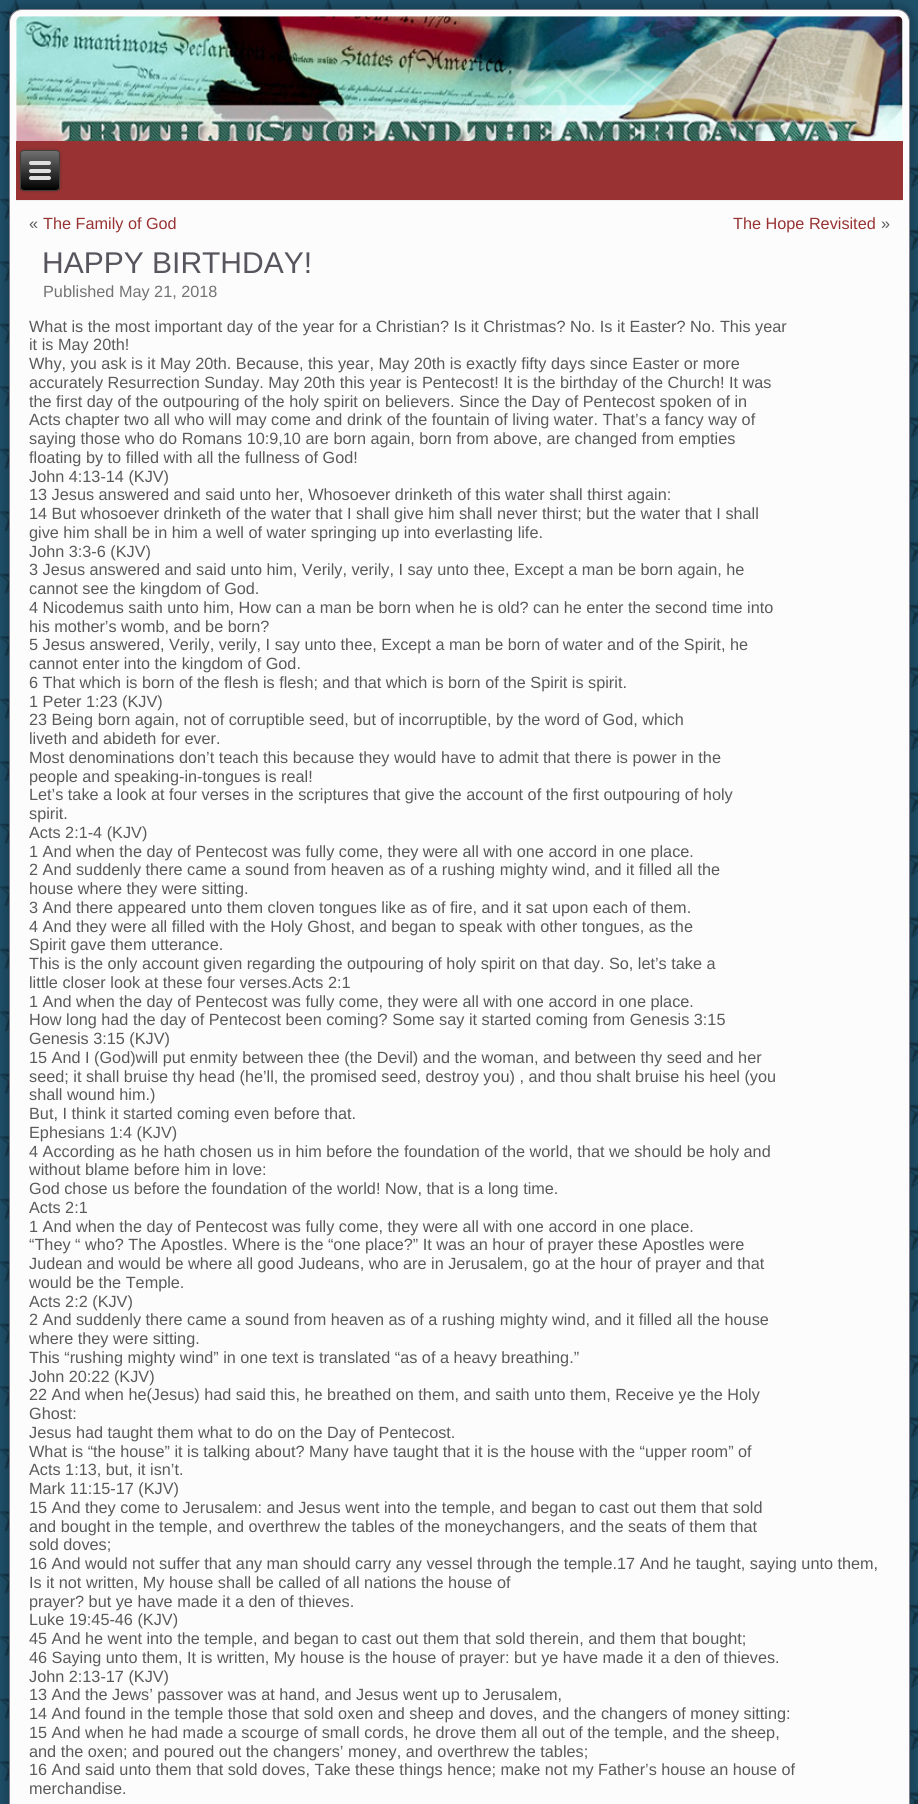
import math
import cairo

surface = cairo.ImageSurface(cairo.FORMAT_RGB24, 918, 1804)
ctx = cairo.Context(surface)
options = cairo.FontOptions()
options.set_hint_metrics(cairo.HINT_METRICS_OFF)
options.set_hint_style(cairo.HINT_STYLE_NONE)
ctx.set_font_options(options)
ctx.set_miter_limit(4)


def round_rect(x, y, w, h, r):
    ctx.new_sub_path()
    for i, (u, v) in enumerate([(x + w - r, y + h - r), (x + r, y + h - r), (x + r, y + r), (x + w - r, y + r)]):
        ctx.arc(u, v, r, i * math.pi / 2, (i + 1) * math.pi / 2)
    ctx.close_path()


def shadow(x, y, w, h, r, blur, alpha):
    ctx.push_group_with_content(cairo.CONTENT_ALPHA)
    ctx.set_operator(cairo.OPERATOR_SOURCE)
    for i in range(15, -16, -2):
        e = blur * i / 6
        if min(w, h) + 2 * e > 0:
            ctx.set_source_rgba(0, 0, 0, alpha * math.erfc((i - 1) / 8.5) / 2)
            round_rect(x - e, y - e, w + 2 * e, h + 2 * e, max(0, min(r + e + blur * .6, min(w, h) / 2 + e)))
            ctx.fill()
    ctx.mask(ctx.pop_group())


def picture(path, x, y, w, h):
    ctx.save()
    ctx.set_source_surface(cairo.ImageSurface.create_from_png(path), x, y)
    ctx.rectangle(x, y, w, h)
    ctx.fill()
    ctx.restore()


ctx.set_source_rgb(1, 1, 1)
ctx.paint()
picture("img1.png", 0, 0, 918, 1804)
ctx.set_source_rgb(0, 0, 0)
shadow(4, 4, 911, 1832, 18, 4.5, 0.2)
ctx.set_source_rgb(0.988, 0.988, 0.988)
round_rect(9.5, 9.5, 900, 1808, 12.5)
ctx.fill_preserve()
ctx.set_source_rgb(0.51, 0.494, 0.541)
ctx.set_line_width(1)
ctx.stroke()
picture("img2.png", 16, 16, 887, 125)
ctx.set_source_rgb(0.6, 0.2, 0.2)
ctx.rectangle(16, 141, 887, 59)
ctx.fill()
ctx.set_source_rgb(0.933, 0.937, 0.933)
ctx.rectangle(16, 200, 887, 1)
ctx.fill()
ctx.set_source_rgb(0, 0, 0)
shadow(20, 150, 40, 41, 4, 2, 0.2)
ctx.save()
round_rect(20, 150, 40, 41, 4)
ctx.clip()
gradient = cairo.LinearGradient(40, 151, 40, 190)
gradient.add_color_stop_rgba(0, 0.439, 0.439, 0.439, 1)
gradient.add_color_stop_rgba(1, 0, 0, 0, 1)
ctx.set_source(gradient)
ctx.rectangle(20, 151, 40, 39)
ctx.fill()
ctx.restore()
round_rect(20.5, 150.5, 39, 40, 3.5)
ctx.set_source_rgb(0.251, 0.251, 0.251)
ctx.stroke()
ctx.set_source_rgb(0.878, 0.878, 0.878)
round_rect(29, 161, 22, 4, 2)
ctx.fill()
round_rect(29, 169, 22, 4, 2)
ctx.fill()
round_rect(29, 176, 22, 4, 2)
ctx.fill()
ctx.select_font_face("Liberation Sans")
ctx.set_font_size(16.25)
ctx.set_source_rgb(0.349, 0.357, 0.349)
ctx.move_to(29, 229)
ctx.show_text("«")
ctx.set_source_rgb(0.6, 0.2, 0.2)
ctx.move_to(43, 229)
ctx.show_text("The Family of God")
ctx.move_to(733, 229)
ctx.show_text("The Hope Revisited")
ctx.set_source_rgb(0.349, 0.357, 0.349)
ctx.move_to(881, 229)
ctx.show_text("»")
ctx.set_font_size(30)
ctx.set_source_rgb(0.345, 0.333, 0.369)
ctx.move_to(42, 273)
ctx.show_text("HAPPY BIRTHDAY!")
ctx.set_font_size(16.25)
ctx.set_source_rgb(0.447, 0.455, 0.447)
ctx.move_to(43, 297)
ctx.show_text("Published May 21, 2018")
ctx.set_source_rgb(0.349, 0.357, 0.349)
ctx.move_to(29, 332)
ctx.show_text("What is the most important day of the year for a Christian? Is it Christmas? No. Is it Easter? No. This year")
ctx.move_to(29, 350)
ctx.show_text("it is May 20th!")
ctx.move_to(29, 369)
ctx.show_text("Why, you ask is it May 20th. Because, this year, May 20th is exactly fifty days since Easter or more")
ctx.move_to(29, 388)
ctx.show_text("accurately Resurrection Sunday. May 20th this year is Pentecost! It is the birthday of the Church! It was")
ctx.move_to(29, 407)
ctx.show_text("the first day of the outpouring of the holy spirit on believers. Since the Day of Pentecost spoken of in")
ctx.move_to(29, 425)
ctx.show_text("Acts chapter two all who will may come and drink of the fountain of living water. That’s a fancy way of")
ctx.move_to(29, 444)
ctx.show_text("saying those who do Romans 10:9,10 are born again, born from above, are changed from empties")
ctx.move_to(29, 463)
ctx.show_text("floating by to filled with all the fullness of God!")
ctx.move_to(29, 482)
ctx.show_text("John 4:13-14 (KJV)")
ctx.move_to(29, 500)
ctx.show_text("13 Jesus answered and said unto her, Whosoever drinketh of this water shall thirst again:")
ctx.move_to(29, 519)
ctx.show_text("14 But whosoever drinketh of the water that I shall give him shall never thirst; but the water that I shall")
ctx.move_to(29, 538)
ctx.show_text("give him shall be in him a well of water springing up into everlasting life.")
ctx.move_to(29, 557)
ctx.show_text("John 3:3-6 (KJV)")
ctx.move_to(29, 575)
ctx.show_text("3 Jesus answered and said unto him, Verily, verily, I say unto thee, Except a man be born again, he")
ctx.move_to(29, 594)
ctx.show_text("cannot see the kingdom of God.")
ctx.move_to(29, 613)
ctx.show_text("4 Nicodemus saith unto him, How can a man be born when he is old? can he enter the second time into")
ctx.move_to(29, 632)
ctx.show_text("his mother’s womb, and be born?")
ctx.move_to(29, 650)
ctx.show_text("5 Jesus answered, Verily, verily, I say unto thee, Except a man be born of water and of the Spirit, he")
ctx.move_to(29, 669)
ctx.show_text("cannot enter into the kingdom of God.")
ctx.move_to(29, 688)
ctx.show_text("6 That which is born of the flesh is flesh; and that which is born of the Spirit is spirit.")
ctx.move_to(29, 707)
ctx.show_text("1 Peter 1:23 (KJV)")
ctx.move_to(29, 725)
ctx.show_text("23 Being born again, not of corruptible seed, but of incorruptible, by the word of God, which")
ctx.move_to(29, 744)
ctx.show_text("liveth and abideth for ever.")
ctx.move_to(29, 763)
ctx.show_text("Most denominations don’t teach this because they would have to admit that there is power in the")
ctx.move_to(29, 782)
ctx.show_text("people and speaking-in-tongues is real!")
ctx.move_to(29, 800)
ctx.show_text("Let’s take a look at four verses in the scriptures that give the account of the first outpouring of holy")
ctx.move_to(29, 819)
ctx.show_text("spirit.")
ctx.move_to(29, 838)
ctx.show_text("Acts 2:1-4 (KJV)")
ctx.move_to(29, 857)
ctx.show_text("1 And when the day of Pentecost was fully come, they were all with one accord in one place.")
ctx.move_to(29, 875)
ctx.show_text("2 And suddenly there came a sound from heaven as of a rushing mighty wind, and it filled all the")
ctx.move_to(29, 894)
ctx.show_text("house where they were sitting.")
ctx.move_to(29, 913)
ctx.show_text("3 And there appeared unto them cloven tongues like as of fire, and it sat upon each of them.")
ctx.move_to(29, 932)
ctx.show_text("4 And they were all filled with the Holy Ghost, and began to speak with other tongues, as the")
ctx.move_to(29, 950)
ctx.show_text("Spirit gave them utterance.")
ctx.move_to(29, 969)
ctx.show_text("This is the only account given regarding the outpouring of holy spirit on that day. So, let’s take a")
ctx.move_to(29, 988)
ctx.show_text("little closer look at these four verses.Acts 2:1")
ctx.move_to(29, 1007)
ctx.show_text("1 And when the day of Pentecost was fully come, they were all with one accord in one place.")
ctx.move_to(29, 1025)
ctx.show_text("How long had the day of Pentecost been coming? Some say it started coming from Genesis 3:15")
ctx.move_to(29, 1044)
ctx.show_text("Genesis 3:15 (KJV)")
ctx.move_to(29, 1063)
ctx.show_text("15 And I (God)will put enmity between thee (the Devil) and the woman, and between thy seed and her")
ctx.move_to(29, 1082)
ctx.show_text("seed; it shall bruise thy head (he’ll, the promised seed, destroy you) , and thou shalt bruise his heel (you")
ctx.move_to(29, 1100)
ctx.show_text("shall wound him.)")
ctx.move_to(29, 1119)
ctx.show_text("But, I think it started coming even before that.")
ctx.move_to(29, 1138)
ctx.show_text("Ephesians 1:4 (KJV)")
ctx.move_to(29, 1157)
ctx.show_text("4 According as he hath chosen us in him before the foundation of the world, that we should be holy and")
ctx.move_to(29, 1175)
ctx.show_text("without blame before him in love:")
ctx.move_to(29, 1194)
ctx.show_text("God chose us before the foundation of the world! Now, that is a long time.")
ctx.move_to(29, 1213)
ctx.show_text("Acts 2:1")
ctx.move_to(29, 1232)
ctx.show_text("1 And when the day of Pentecost was fully come, they were all with one accord in one place.")
ctx.move_to(29, 1250)
ctx.show_text("“They “ who? The Apostles. Where is the “one place?” It was an hour of prayer these Apostles were")
ctx.move_to(29, 1269)
ctx.show_text("Judean and would be where all good Judeans, who are in Jerusalem, go at the hour of prayer and that")
ctx.move_to(29, 1288)
ctx.show_text("would be the Temple.")
ctx.move_to(29, 1307)
ctx.show_text("Acts 2:2 (KJV)")
ctx.move_to(29, 1325)
ctx.show_text("2 And suddenly there came a sound from heaven as of a rushing mighty wind, and it filled all the house")
ctx.move_to(29, 1344)
ctx.show_text("where they were sitting.")
ctx.move_to(29, 1363)
ctx.show_text("This “rushing mighty wind” in one text is translated “as of a heavy breathing.”")
ctx.move_to(29, 1382)
ctx.show_text("John 20:22 (KJV)")
ctx.move_to(29, 1400)
ctx.show_text("22 And when he(Jesus) had said this, he breathed on them, and saith unto them, Receive ye the Holy")
ctx.move_to(29, 1419)
ctx.show_text("Ghost:")
ctx.move_to(29, 1438)
ctx.show_text("Jesus had taught them what to do on the Day of Pentecost.")
ctx.move_to(29, 1457)
ctx.show_text("What is “the house” it is talking about? Many have taught that it is the house with the “upper room” of")
ctx.move_to(29, 1475)
ctx.show_text("Acts 1:13, but, it isn’t.")
ctx.move_to(29, 1494)
ctx.show_text("Mark 11:15-17 (KJV)")
ctx.move_to(29, 1513)
ctx.show_text("15 And they come to Jerusalem: and Jesus went into the temple, and began to cast out them that sold")
ctx.move_to(29, 1532)
ctx.show_text("and bought in the temple, and overthrew the tables of the moneychangers, and the seats of them that")
ctx.move_to(29, 1550)
ctx.show_text("sold doves;")
ctx.move_to(29, 1569)
ctx.show_text("16 And would not suffer that any man should carry any vessel through the temple.17 And he taught, saying unto them,")
ctx.move_to(29, 1588)
ctx.show_text("Is it not written, My house shall be called of all nations the house of")
ctx.move_to(29, 1607)
ctx.show_text("prayer? but ye have made it a den of thieves.")
ctx.move_to(29, 1625)
ctx.show_text("Luke 19:45-46 (KJV)")
ctx.move_to(29, 1644)
ctx.show_text("45 And he went into the temple, and began to cast out them that sold therein, and them that bought;")
ctx.move_to(29, 1663)
ctx.show_text("46 Saying unto them, It is written, My house is the house of prayer: but ye have made it a den of thieves.")
ctx.move_to(29, 1682)
ctx.show_text("John 2:13-17 (KJV)")
ctx.move_to(29, 1700)
ctx.show_text("13 And the Jews’ passover was at hand, and Jesus went up to Jerusalem,")
ctx.move_to(29, 1719)
ctx.show_text("14 And found in the temple those that sold oxen and sheep and doves, and the changers of money sitting:")
ctx.move_to(29, 1738)
ctx.show_text("15 And when he had made a scourge of small cords, he drove them all out of the temple, and the sheep,")
ctx.move_to(29, 1757)
ctx.show_text("and the oxen; and poured out the changers’ money, and overthrew the tables;")
ctx.move_to(29, 1775)
ctx.show_text("16 And said unto them that sold doves, Take these things hence; make not my Father’s house an house of")
ctx.move_to(29, 1794)
ctx.show_text("merchandise.")
surface.write_to_png("page.png")
